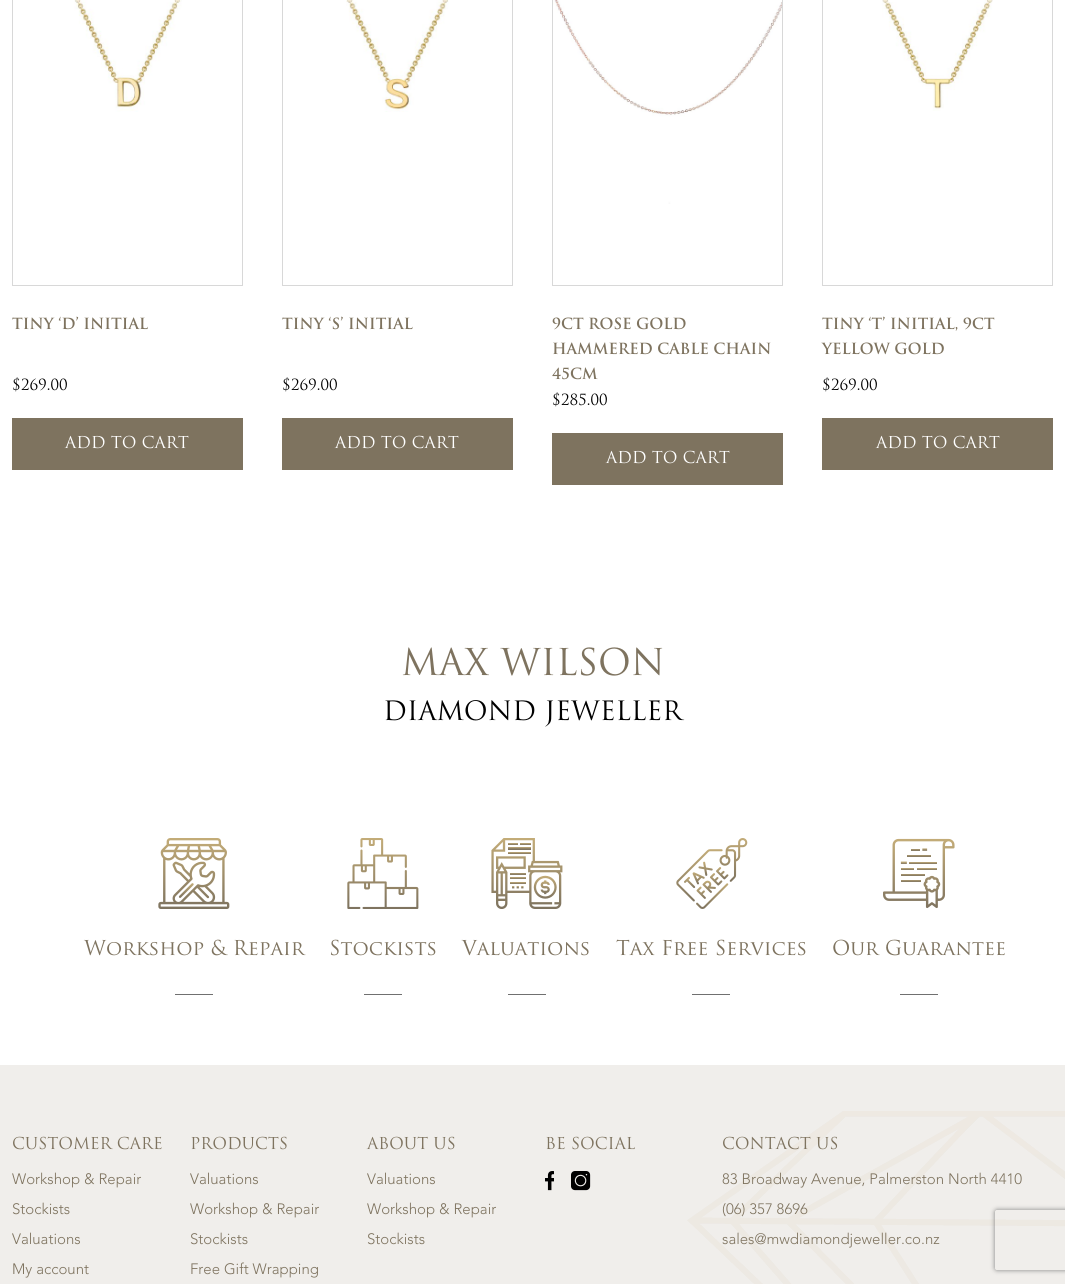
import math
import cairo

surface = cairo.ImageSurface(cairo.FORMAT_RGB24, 1065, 1284)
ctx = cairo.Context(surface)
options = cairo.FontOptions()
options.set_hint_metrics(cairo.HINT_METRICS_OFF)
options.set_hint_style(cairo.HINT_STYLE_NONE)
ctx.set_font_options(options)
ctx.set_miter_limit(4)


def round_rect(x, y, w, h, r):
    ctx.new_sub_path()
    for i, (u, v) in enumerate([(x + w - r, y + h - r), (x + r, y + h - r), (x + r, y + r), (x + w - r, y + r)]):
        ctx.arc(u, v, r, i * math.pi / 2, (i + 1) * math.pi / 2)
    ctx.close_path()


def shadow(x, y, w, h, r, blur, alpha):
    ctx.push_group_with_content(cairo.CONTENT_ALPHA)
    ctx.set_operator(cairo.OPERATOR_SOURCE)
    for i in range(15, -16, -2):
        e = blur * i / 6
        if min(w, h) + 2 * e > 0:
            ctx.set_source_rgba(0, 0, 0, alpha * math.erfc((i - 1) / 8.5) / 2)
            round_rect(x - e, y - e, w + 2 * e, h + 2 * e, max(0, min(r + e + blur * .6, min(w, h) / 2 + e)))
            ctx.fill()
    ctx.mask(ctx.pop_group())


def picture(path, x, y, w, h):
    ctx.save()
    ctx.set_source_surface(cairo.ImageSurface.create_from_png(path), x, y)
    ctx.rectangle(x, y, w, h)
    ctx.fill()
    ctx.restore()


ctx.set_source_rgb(1, 1, 1)
ctx.paint()
ctx.rectangle(12.5, -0.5, 230, 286)
ctx.set_source_rgb(0.847, 0.847, 0.847)
ctx.set_line_width(1)
ctx.stroke()
picture("img1.png", 74, 0, 108, 112)
picture("img2.png", 12, 316, 136, 14)
picture("img3.png", 13, 377, 7, 15)
picture("img4.png", 21, 378, 46, 13)
ctx.set_source_rgb(0.494, 0.451, 0.373)
ctx.rectangle(12, 418, 231, 52)
ctx.fill()
picture("img5.png", 64, 435, 125, 14)
ctx.rectangle(282.5, -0.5, 230, 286)
ctx.set_source_rgb(0.847, 0.847, 0.847)
ctx.stroke()
picture("img6.png", 346, 0, 103, 112)
picture("img7.png", 282, 316, 131, 14)
picture("img3.png", 283, 377, 7, 15)
picture("img4.png", 291, 378, 46, 13)
ctx.set_source_rgb(0.494, 0.451, 0.373)
ctx.rectangle(282, 418, 231, 52)
ctx.fill()
picture("img5.png", 334, 435, 125, 14)
ctx.rectangle(552.5, -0.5, 230, 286)
ctx.set_source_rgb(0.847, 0.847, 0.847)
ctx.stroke()
picture("img8.png", 553, 0, 229, 204)
picture("img9.png", 552, 317, 134, 13)
picture("img10.png", 553, 342, 218, 13)
picture("img11.png", 552, 367, 46, 13)
picture("img3.png", 553, 392, 7, 15)
picture("img12.png", 561, 393, 46, 13)
ctx.set_source_rgb(0.494, 0.451, 0.373)
ctx.rectangle(552, 433, 231, 52)
ctx.fill()
picture("img5.png", 605, 450, 125, 14)
ctx.rectangle(822.5, -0.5, 230, 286)
ctx.set_source_rgb(0.847, 0.847, 0.847)
ctx.stroke()
picture("img13.png", 882, 0, 111, 111)
picture("img14.png", 822, 316, 173, 15)
picture("img15.png", 821, 342, 123, 13)
picture("img3.png", 823, 377, 7, 15)
picture("img4.png", 831, 378, 46, 13)
ctx.set_source_rgb(0.494, 0.451, 0.373)
ctx.rectangle(822, 418, 231, 52)
ctx.fill()
picture("img5.png", 875, 435, 125, 14)
picture("img16.png", 402, 647, 261, 29)
picture("img17.png", 385, 700, 300, 27)
picture("img18.png", 158, 838, 72, 71)
picture("img19.png", 83, 939, 223, 17)
ctx.set_source_rgb(0.439, 0.439, 0.439)
ctx.rectangle(175, 994, 38, 1)
ctx.fill()
picture("img20.png", 347, 838, 72, 71)
picture("img21.png", 331, 939, 105, 17)
ctx.rectangle(364, 994, 38, 1)
ctx.fill()
picture("img22.png", 491, 838, 72, 71)
picture("img23.png", 461, 939, 128, 17)
ctx.rectangle(508, 994, 38, 1)
ctx.fill()
picture("img24.png", 676, 838, 72, 71)
picture("img25.png", 616, 939, 190, 17)
ctx.rectangle(692, 994, 38, 1)
ctx.fill()
picture("img26.png", 883, 838, 72, 71)
picture("img27.png", 833, 939, 172, 17)
ctx.rectangle(900, 994, 38, 1)
ctx.fill()
ctx.set_source_rgb(0.941, 0.933, 0.918)
ctx.rectangle(0, 1065, 1065, 219)
ctx.fill()
picture("img28.png", 687, 1111, 378, 173)
picture("img29.png", 13, 1136, 149, 14)
ctx.select_font_face("Avenir Light")
ctx.set_font_size(15)
ctx.set_source_rgb(0.494, 0.451, 0.373)
ctx.move_to(12, 1184)
ctx.show_text("Workshop & Repair")
ctx.move_to(12, 1214)
ctx.show_text("Stockists")
ctx.move_to(12, 1244)
ctx.show_text("Valuations")
ctx.move_to(12, 1274)
ctx.show_text("My account")
picture("img30.png", 191, 1136, 96, 14)
ctx.move_to(190, 1184)
ctx.show_text("Valuations")
ctx.move_to(190, 1214)
ctx.show_text("Workshop & Repair")
ctx.move_to(190, 1244)
ctx.show_text("Stockists")
ctx.move_to(190, 1274)
ctx.show_text("Free Gift Wrapping")
picture("img31.png", 546, 1136, 89, 14)
picture("img32.png", 545, 1171, 9, 20)
picture("img33.png", 571, 1171, 20, 20)
picture("img34.png", 366, 1136, 89, 14)
ctx.move_to(367, 1184)
ctx.show_text("Valuations")
ctx.move_to(367, 1214)
ctx.show_text("Workshop & Repair")
ctx.move_to(367, 1244)
ctx.show_text("Stockists")
picture("img35.png", 723, 1136, 115, 14)
ctx.move_to(722, 1184)
ctx.show_text("83 Broadway Avenue, Palmerston North 4410")
ctx.move_to(722, 1214)
ctx.show_text("(06) 357 8696")
ctx.move_to(722, 1244)
ctx.show_text("sales@mwdiamondjeweller.co.nz")
ctx.save()
ctx.set_fill_rule(cairo.FILL_RULE_EVEN_ODD)
ctx.new_path()
ctx.move_to(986, 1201)
ctx.line_to(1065, 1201)
ctx.line_to(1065, 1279)
ctx.line_to(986, 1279)
ctx.close_path()
ctx.move_to(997, 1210)
ctx.line_to(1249, 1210)
ctx.curve_to(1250, 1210, 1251, 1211, 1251, 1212)
ctx.line_to(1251, 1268)
ctx.curve_to(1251, 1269, 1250, 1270, 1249, 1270)
ctx.line_to(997, 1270)
ctx.curve_to(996, 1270, 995, 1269, 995, 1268)
ctx.line_to(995, 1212)
ctx.curve_to(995, 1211, 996, 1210, 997, 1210)
ctx.close_path()
ctx.clip()
ctx.set_source_rgb(0.502, 0.502, 0.502)
shadow(995, 1210, 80, 60, 2, 2.5, 1)
ctx.restore()
surface.write_to_png("page.png")
